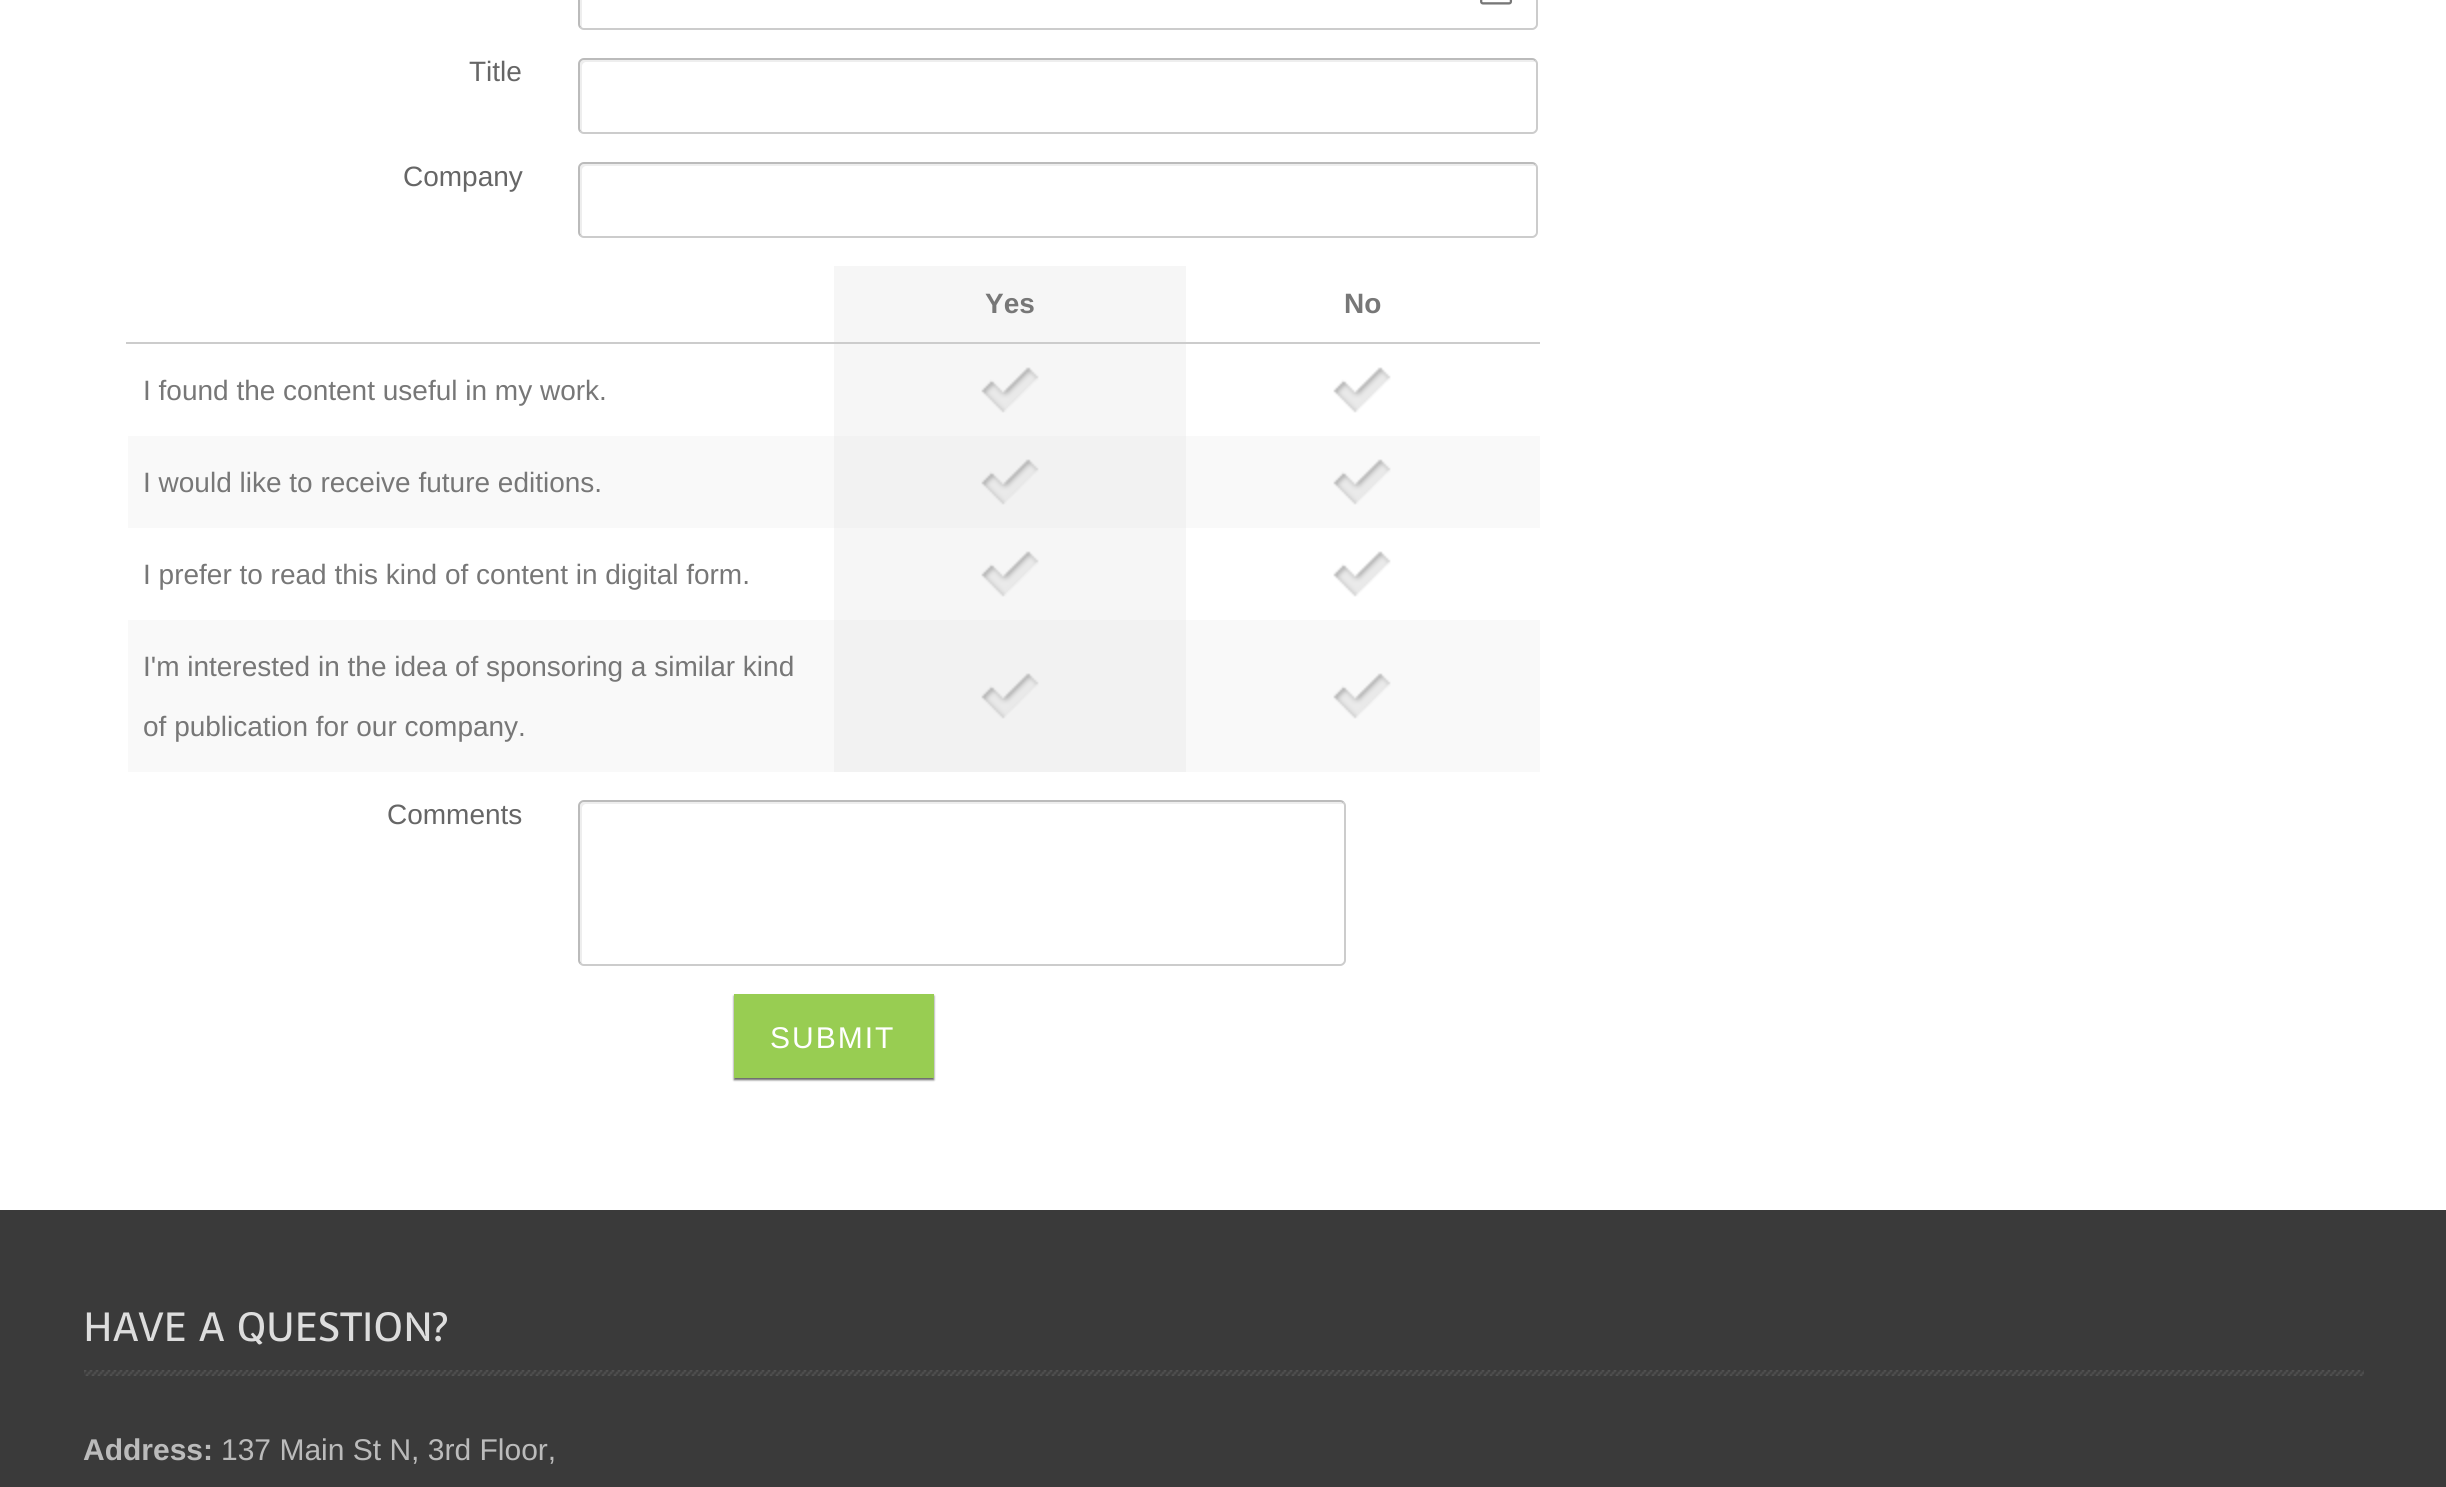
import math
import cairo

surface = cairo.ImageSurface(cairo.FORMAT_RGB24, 2446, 1487)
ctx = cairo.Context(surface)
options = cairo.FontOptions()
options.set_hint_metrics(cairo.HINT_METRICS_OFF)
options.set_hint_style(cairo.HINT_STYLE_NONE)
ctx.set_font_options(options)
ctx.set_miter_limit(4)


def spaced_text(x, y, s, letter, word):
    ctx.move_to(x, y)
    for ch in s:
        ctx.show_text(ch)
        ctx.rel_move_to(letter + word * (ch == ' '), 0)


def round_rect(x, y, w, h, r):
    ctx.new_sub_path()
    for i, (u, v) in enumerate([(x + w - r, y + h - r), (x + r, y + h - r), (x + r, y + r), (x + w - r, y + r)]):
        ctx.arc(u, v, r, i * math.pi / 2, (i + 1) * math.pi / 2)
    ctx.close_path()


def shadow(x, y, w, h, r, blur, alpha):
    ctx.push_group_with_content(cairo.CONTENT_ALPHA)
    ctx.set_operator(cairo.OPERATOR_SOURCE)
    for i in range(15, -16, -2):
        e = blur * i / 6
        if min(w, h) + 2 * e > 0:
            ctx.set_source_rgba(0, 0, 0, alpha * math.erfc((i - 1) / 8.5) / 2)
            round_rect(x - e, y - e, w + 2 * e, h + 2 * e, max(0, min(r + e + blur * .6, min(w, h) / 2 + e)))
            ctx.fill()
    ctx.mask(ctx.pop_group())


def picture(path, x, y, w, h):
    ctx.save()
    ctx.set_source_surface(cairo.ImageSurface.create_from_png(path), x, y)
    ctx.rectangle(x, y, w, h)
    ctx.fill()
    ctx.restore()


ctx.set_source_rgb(1, 1, 1)
ctx.paint()
ctx.set_source_rgb(0.933, 0.933, 0.933)
ctx.new_path()
ctx.move_to(586, -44)
ctx.line_to(1534, -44)
ctx.line_to(1536, -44)
ctx.curve_to(1535, -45, 1534, -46, 1532, -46)
ctx.line_to(584, -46)
ctx.curve_to(582, -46, 580, -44, 580, -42)
ctx.line_to(580, 24)
ctx.curve_to(580, 26, 581, 27, 582, 28)
ctx.line_to(582, 26)
ctx.line_to(582, -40)
ctx.curve_to(582, -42, 584, -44, 586, -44)
ctx.close_path()
ctx.fill()
ctx.new_path()
ctx.move_to(1535.5, -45.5)
ctx.curve_to(1536.5, -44.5, 1537, -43.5, 1537, -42)
ctx.line_to(1537, 24)
ctx.curve_to(1537, 25.5, 1536.5, 26.5, 1535.5, 27.5)
ctx.curve_to(1534.5, 28.5, 1533.5, 29, 1532, 29)
ctx.line_to(584, 29)
ctx.curve_to(582.5, 29, 581.5, 28.5, 580.5, 27.5)
ctx.set_source_rgb(0.8, 0.8, 0.8)
ctx.stroke()
ctx.new_path()
ctx.move_to(580.5, 27.5)
ctx.curve_to(579.5, 26.5, 579, 25.5, 579, 24)
ctx.line_to(579, -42)
ctx.curve_to(579, -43.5, 579.5, -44.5, 580.5, -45.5)
ctx.curve_to(581.5, -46.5, 582.5, -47, 584, -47)
ctx.line_to(1532, -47)
ctx.curve_to(1533.5, -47, 1534.5, -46.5, 1535.5, -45.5)
ctx.set_source_rgb(0.733, 0.733, 0.733)
ctx.stroke()
picture("img1.png", 1480, 0, 33, 5)
ctx.select_font_face("Liberation Sans")
ctx.set_font_size(28)
ctx.set_source_rgb(0.4, 0.4, 0.4)
ctx.move_to(469, 81)
ctx.show_text("Title")
ctx.set_source_rgb(0.933, 0.933, 0.933)
ctx.new_path()
ctx.move_to(586, 62)
ctx.line_to(1534, 62)
ctx.line_to(1536, 62)
ctx.curve_to(1535, 61, 1534, 60, 1532, 60)
ctx.line_to(584, 60)
ctx.curve_to(582, 60, 580, 62, 580, 64)
ctx.line_to(580, 128)
ctx.curve_to(580, 130, 581, 131, 582, 132)
ctx.line_to(582, 130)
ctx.line_to(582, 66)
ctx.curve_to(582, 64, 584, 62, 586, 62)
ctx.close_path()
ctx.fill()
ctx.new_path()
ctx.move_to(1535.5, 60.5)
ctx.curve_to(1536.5, 61.5, 1537, 62.5, 1537, 64)
ctx.line_to(1537, 128)
ctx.curve_to(1537, 129.5, 1536.5, 130.5, 1535.5, 131.5)
ctx.curve_to(1534.5, 132.5, 1533.5, 133, 1532, 133)
ctx.line_to(584, 133)
ctx.curve_to(582.5, 133, 581.5, 132.5, 580.5, 131.5)
ctx.set_source_rgb(0.8, 0.8, 0.8)
ctx.stroke()
ctx.new_path()
ctx.move_to(580.5, 131.5)
ctx.curve_to(579.5, 130.5, 579, 129.5, 579, 128)
ctx.line_to(579, 64)
ctx.curve_to(579, 62.5, 579.5, 61.5, 580.5, 60.5)
ctx.curve_to(581.5, 59.5, 582.5, 59, 584, 59)
ctx.line_to(1532, 59)
ctx.curve_to(1533.5, 59, 1534.5, 59.5, 1535.5, 60.5)
ctx.set_source_rgb(0.733, 0.733, 0.733)
ctx.stroke()
ctx.set_source_rgb(0.4, 0.4, 0.4)
ctx.move_to(403, 186)
ctx.show_text("Company")
ctx.set_source_rgb(0.933, 0.933, 0.933)
ctx.new_path()
ctx.move_to(586, 166)
ctx.line_to(1534, 166)
ctx.line_to(1536, 166)
ctx.curve_to(1535, 165, 1534, 164, 1532, 164)
ctx.line_to(584, 164)
ctx.curve_to(582, 164, 580, 166, 580, 168)
ctx.line_to(580, 232)
ctx.curve_to(580, 234, 581, 235, 582, 236)
ctx.line_to(582, 234)
ctx.line_to(582, 170)
ctx.curve_to(582, 168, 584, 166, 586, 166)
ctx.close_path()
ctx.fill()
ctx.new_path()
ctx.move_to(1535.5, 164.5)
ctx.curve_to(1536.5, 165.5, 1537, 166.5, 1537, 168)
ctx.line_to(1537, 232)
ctx.curve_to(1537, 233.5, 1536.5, 234.5, 1535.5, 235.5)
ctx.curve_to(1534.5, 236.5, 1533.5, 237, 1532, 237)
ctx.line_to(584, 237)
ctx.curve_to(582.5, 237, 581.5, 236.5, 580.5, 235.5)
ctx.set_source_rgb(0.8, 0.8, 0.8)
ctx.stroke()
ctx.new_path()
ctx.move_to(580.5, 235.5)
ctx.curve_to(579.5, 234.5, 579, 233.5, 579, 232)
ctx.line_to(579, 168)
ctx.curve_to(579, 166.5, 579.5, 165.5, 580.5, 164.5)
ctx.curve_to(581.5, 163.5, 582.5, 163, 584, 163)
ctx.line_to(1532, 163)
ctx.curve_to(1533.5, 163, 1534.5, 163.5, 1535.5, 164.5)
ctx.set_source_rgb(0.733, 0.733, 0.733)
ctx.stroke()
ctx.set_source_rgb(0.961, 0.961, 0.961)
ctx.rectangle(834, 266, 352, 76)
ctx.fill()
ctx.select_font_face("Liberation Sans", cairo.FONT_SLANT_NORMAL, cairo.FONT_WEIGHT_BOLD)
ctx.set_source_rgb(0.467, 0.467, 0.467)
ctx.move_to(985, 313)
ctx.show_text("Yes")
ctx.set_source_rgb(0.8, 0.8, 0.8)
ctx.rectangle(126, 342, 1414, 2)
ctx.fill()
ctx.set_source_rgb(0.467, 0.467, 0.467)
ctx.move_to(1344, 313)
ctx.show_text("No")
ctx.select_font_face("Liberation Sans")
ctx.move_to(143, 400)
ctx.show_text("I found the content useful in my work.")
ctx.set_source_rgb(0.961, 0.961, 0.961)
ctx.rectangle(834, 344, 352, 92)
ctx.fill()
picture("img2.png", 981, 367, 58, 46)
picture("img3.png", 1333, 367, 58, 46)
ctx.set_source_rgb(0.973, 0.973, 0.973)
ctx.rectangle(128, 436, 1412, 92)
ctx.fill()
ctx.set_source_rgb(0.467, 0.467, 0.467)
ctx.move_to(143, 492)
ctx.show_text("I would like to receive future editions.")
ctx.set_source_rgb(0.949, 0.949, 0.949)
ctx.rectangle(834, 436, 352, 92)
ctx.fill()
picture("img4.png", 981, 459, 58, 46)
picture("img5.png", 1333, 459, 58, 46)
ctx.set_source_rgb(0.467, 0.467, 0.467)
ctx.move_to(143, 584)
ctx.show_text("I prefer to read this kind of content in digital form.")
ctx.set_source_rgb(0.961, 0.961, 0.961)
ctx.rectangle(834, 528, 352, 92)
ctx.fill()
picture("img2.png", 981, 551, 58, 46)
picture("img3.png", 1333, 551, 58, 46)
ctx.set_source_rgb(0.973, 0.973, 0.973)
ctx.rectangle(128, 620, 1412, 152)
ctx.fill()
ctx.set_source_rgb(0.467, 0.467, 0.467)
ctx.move_to(143, 676)
ctx.show_text("I'm interested in the idea of sponsoring a similar kind")
ctx.move_to(143, 736)
ctx.show_text("of publication for our company.")
ctx.set_source_rgb(0.949, 0.949, 0.949)
ctx.rectangle(834, 620, 352, 152)
ctx.fill()
picture("img4.png", 981, 673, 58, 46)
picture("img5.png", 1333, 673, 58, 46)
ctx.set_source_rgb(0.4, 0.4, 0.4)
ctx.move_to(387, 824)
ctx.show_text("Comments")
ctx.set_source_rgb(0.933, 0.933, 0.933)
ctx.new_path()
ctx.move_to(586, 804)
ctx.line_to(1342, 804)
ctx.line_to(1344, 804)
ctx.curve_to(1343, 803, 1342, 802, 1340, 802)
ctx.line_to(584, 802)
ctx.curve_to(582, 802, 580, 804, 580, 806)
ctx.line_to(580, 960)
ctx.curve_to(580, 962, 581, 963, 582, 964)
ctx.line_to(582, 962)
ctx.line_to(582, 808)
ctx.curve_to(582, 806, 584, 804, 586, 804)
ctx.close_path()
ctx.fill()
ctx.new_path()
ctx.move_to(1343.5, 802.5)
ctx.curve_to(1344.5, 803.5, 1345, 804.5, 1345, 806)
ctx.line_to(1345, 960)
ctx.curve_to(1345, 961.5, 1344.5, 962.5, 1343.5, 963.5)
ctx.curve_to(1342.5, 964.5, 1341.5, 965, 1340, 965)
ctx.line_to(584, 965)
ctx.curve_to(582.5, 965, 581.5, 964.5, 580.5, 963.5)
ctx.set_source_rgb(0.8, 0.8, 0.8)
ctx.stroke()
ctx.new_path()
ctx.move_to(580.5, 963.5)
ctx.curve_to(579.5, 962.5, 579, 961.5, 579, 960)
ctx.line_to(579, 806)
ctx.curve_to(579, 804.5, 579.5, 803.5, 580.5, 802.5)
ctx.curve_to(581.5, 801.5, 582.5, 801, 584, 801)
ctx.line_to(1340, 801)
ctx.curve_to(1341.5, 801, 1342.5, 801.5, 1343.5, 802.5)
ctx.set_source_rgb(0.733, 0.733, 0.733)
ctx.stroke()
ctx.set_source_rgb(0.4, 0.4, 0.4)
shadow(734, 996, 200, 84, 0, 1, 1)
ctx.set_source_rgb(0.596, 0.804, 0.322)
ctx.rectangle(734, 994, 200, 84)
ctx.fill()
ctx.set_font_size(30)
ctx.set_source_rgb(1, 1, 1)
spaced_text(770, 1048, "SUBMIT", 2, 0)
ctx.set_source_rgb(0.227, 0.227, 0.227)
ctx.rectangle(0, 1210, 2446, 277)
ctx.fill()
ctx.select_font_face("Voces")
ctx.set_font_size(40.75)
ctx.set_source_rgb(0.867, 0.867, 0.867)
ctx.move_to(83, 1341)
ctx.show_text("HAVE A QUESTION?")
picture("img6.png", 84, 1370, 2280, 6)
ctx.select_font_face("Liberation Sans", cairo.FONT_SLANT_NORMAL, cairo.FONT_WEIGHT_BOLD)
ctx.set_font_size(30)
ctx.set_source_rgb(0.733, 0.733, 0.733)
ctx.move_to(83, 1460)
ctx.show_text("Address:")
ctx.select_font_face("Liberation Sans")
ctx.move_to(221, 1460)
ctx.show_text("137 Main St N, 3rd Floor,")
surface.write_to_png("page.png")
